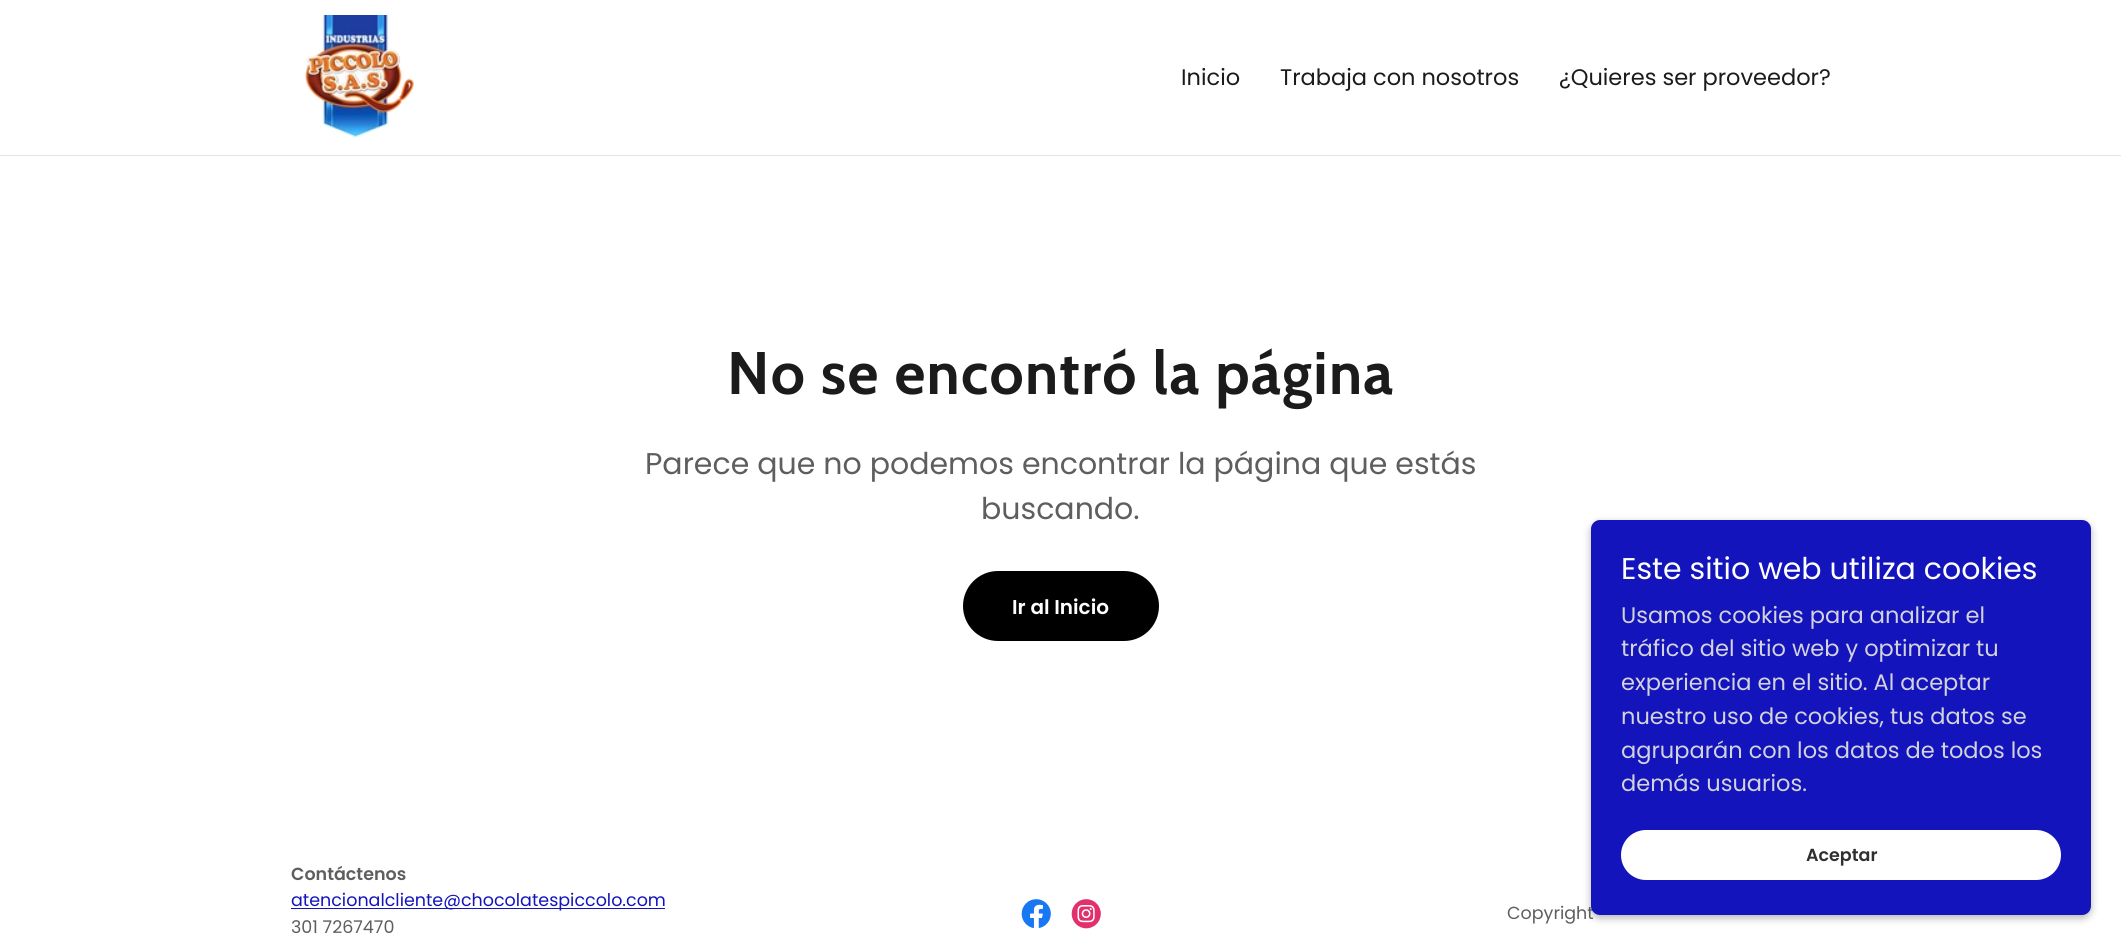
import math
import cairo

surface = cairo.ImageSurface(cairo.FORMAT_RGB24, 2121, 945)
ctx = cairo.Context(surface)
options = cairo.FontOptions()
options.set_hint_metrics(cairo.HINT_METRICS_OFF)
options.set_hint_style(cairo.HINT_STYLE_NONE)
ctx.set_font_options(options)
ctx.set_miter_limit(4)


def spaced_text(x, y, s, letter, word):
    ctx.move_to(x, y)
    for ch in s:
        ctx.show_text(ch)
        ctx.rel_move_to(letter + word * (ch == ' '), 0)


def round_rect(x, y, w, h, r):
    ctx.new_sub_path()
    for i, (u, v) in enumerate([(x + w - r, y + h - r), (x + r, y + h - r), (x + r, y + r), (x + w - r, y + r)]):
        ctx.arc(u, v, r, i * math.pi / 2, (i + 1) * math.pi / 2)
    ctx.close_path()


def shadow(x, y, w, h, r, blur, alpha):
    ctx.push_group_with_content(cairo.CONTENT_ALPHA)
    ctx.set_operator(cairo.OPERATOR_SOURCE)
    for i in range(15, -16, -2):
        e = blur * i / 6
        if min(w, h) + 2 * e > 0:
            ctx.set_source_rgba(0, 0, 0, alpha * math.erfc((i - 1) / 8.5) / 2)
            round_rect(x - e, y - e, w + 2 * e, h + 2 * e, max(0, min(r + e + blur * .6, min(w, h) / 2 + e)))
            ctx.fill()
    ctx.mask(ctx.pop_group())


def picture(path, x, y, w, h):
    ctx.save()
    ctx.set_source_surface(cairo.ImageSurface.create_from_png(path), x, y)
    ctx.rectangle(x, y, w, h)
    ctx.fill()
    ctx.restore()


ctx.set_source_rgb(1, 1, 1)
ctx.paint()
picture("img1.png", 305, 15, 109, 123)
ctx.select_font_face("Poppins")
ctx.set_font_size(22.5)
ctx.set_source_rgb(0.106, 0.106, 0.106)
ctx.move_to(1181, 85)
ctx.show_text("Inicio")
ctx.move_to(1280, 85)
ctx.show_text("Trabaja con nosotros")
ctx.move_to(1559, 85)
ctx.show_text("¿Quieres ser proveedor?")
ctx.set_source_rgb(0.886, 0.886, 0.886)
ctx.rectangle(0, 155, 2121, 1)
ctx.fill()
ctx.select_font_face("Cabin", cairo.FONT_SLANT_NORMAL, cairo.FONT_WEIGHT_BOLD)
ctx.set_font_size(60)
ctx.set_source_rgb(0.106, 0.106, 0.106)
spaced_text(727, 394, "No se encontró la página", 1.25, 0)
ctx.select_font_face("Poppins")
ctx.set_font_size(30)
ctx.set_source_rgb(0.369, 0.369, 0.369)
ctx.move_to(645, 474)
ctx.show_text("Parece que no podemos encontrar la página que estás")
ctx.move_to(981, 519)
ctx.show_text("buscando.")
ctx.set_source_rgb(0, 0, 0)
round_rect(963, 571, 196, 70, 35)
ctx.fill()
ctx.select_font_face("Poppins SemiBold")
ctx.set_font_size(20)
ctx.set_source_rgb(1, 1, 1)
ctx.move_to(1012, 614)
ctx.show_text("Ir al Inicio")
ctx.set_source_rgb(0, 0, 0)
shadow(1591, 523, 500, 395, 9, 4, 0.3)
ctx.select_font_face("Poppins")
ctx.set_font_size(17.5)
ctx.set_source_rgb(0.369, 0.369, 0.369)
ctx.move_to(1507, 919)
ctx.show_text("Copyright")
ctx.set_source_rgb(0.082, 0.082, 0.741)
round_rect(1591, 520, 500, 395, 9)
ctx.fill()
ctx.set_font_size(30)
ctx.set_source_rgb(1, 1, 1)
ctx.move_to(1621, 579)
ctx.show_text("Este sitio web utiliza cookies")
ctx.set_font_size(22.5)
ctx.set_source_rgb(0.827, 0.827, 0.863)
ctx.move_to(1621, 623)
ctx.show_text("Usamos cookies para analizar el")
ctx.move_to(1621, 656)
ctx.show_text("tráfico del sitio web y optimizar tu")
ctx.move_to(1621, 690)
ctx.show_text("experiencia en el sitio. Al aceptar")
ctx.move_to(1621, 724)
ctx.show_text("nuestro uso de cookies, tus datos se")
ctx.move_to(1621, 758)
ctx.show_text("agruparán con los datos de todos los")
ctx.move_to(1621, 791)
ctx.show_text("demás usuarios.")
ctx.set_source_rgb(1, 1, 1)
round_rect(1621, 830, 440, 50, 25)
ctx.fill()
ctx.select_font_face("Poppins SemiBold")
ctx.set_font_size(17.5)
ctx.set_source_rgb(0.188, 0.188, 0.188)
ctx.move_to(1806, 861)
ctx.show_text("Aceptar")
ctx.set_source_rgb(0.369, 0.369, 0.369)
ctx.move_to(291, 880)
ctx.show_text("Contáctenos")
ctx.set_source_rgb(0.082, 0.082, 0.741)
ctx.rectangle(291, 908, 374, 1)
ctx.fill()
ctx.select_font_face("Poppins")
ctx.move_to(291, 906)
ctx.show_text("atencionalcliente@chocolatespiccolo.com")
ctx.set_source_rgb(0.369, 0.369, 0.369)
ctx.move_to(291, 933)
ctx.show_text("301 7267470")
picture("img2.png", 1021, 899, 30, 30)
picture("img3.png", 1071, 899, 30, 30)
surface.write_to_png("page.png")
